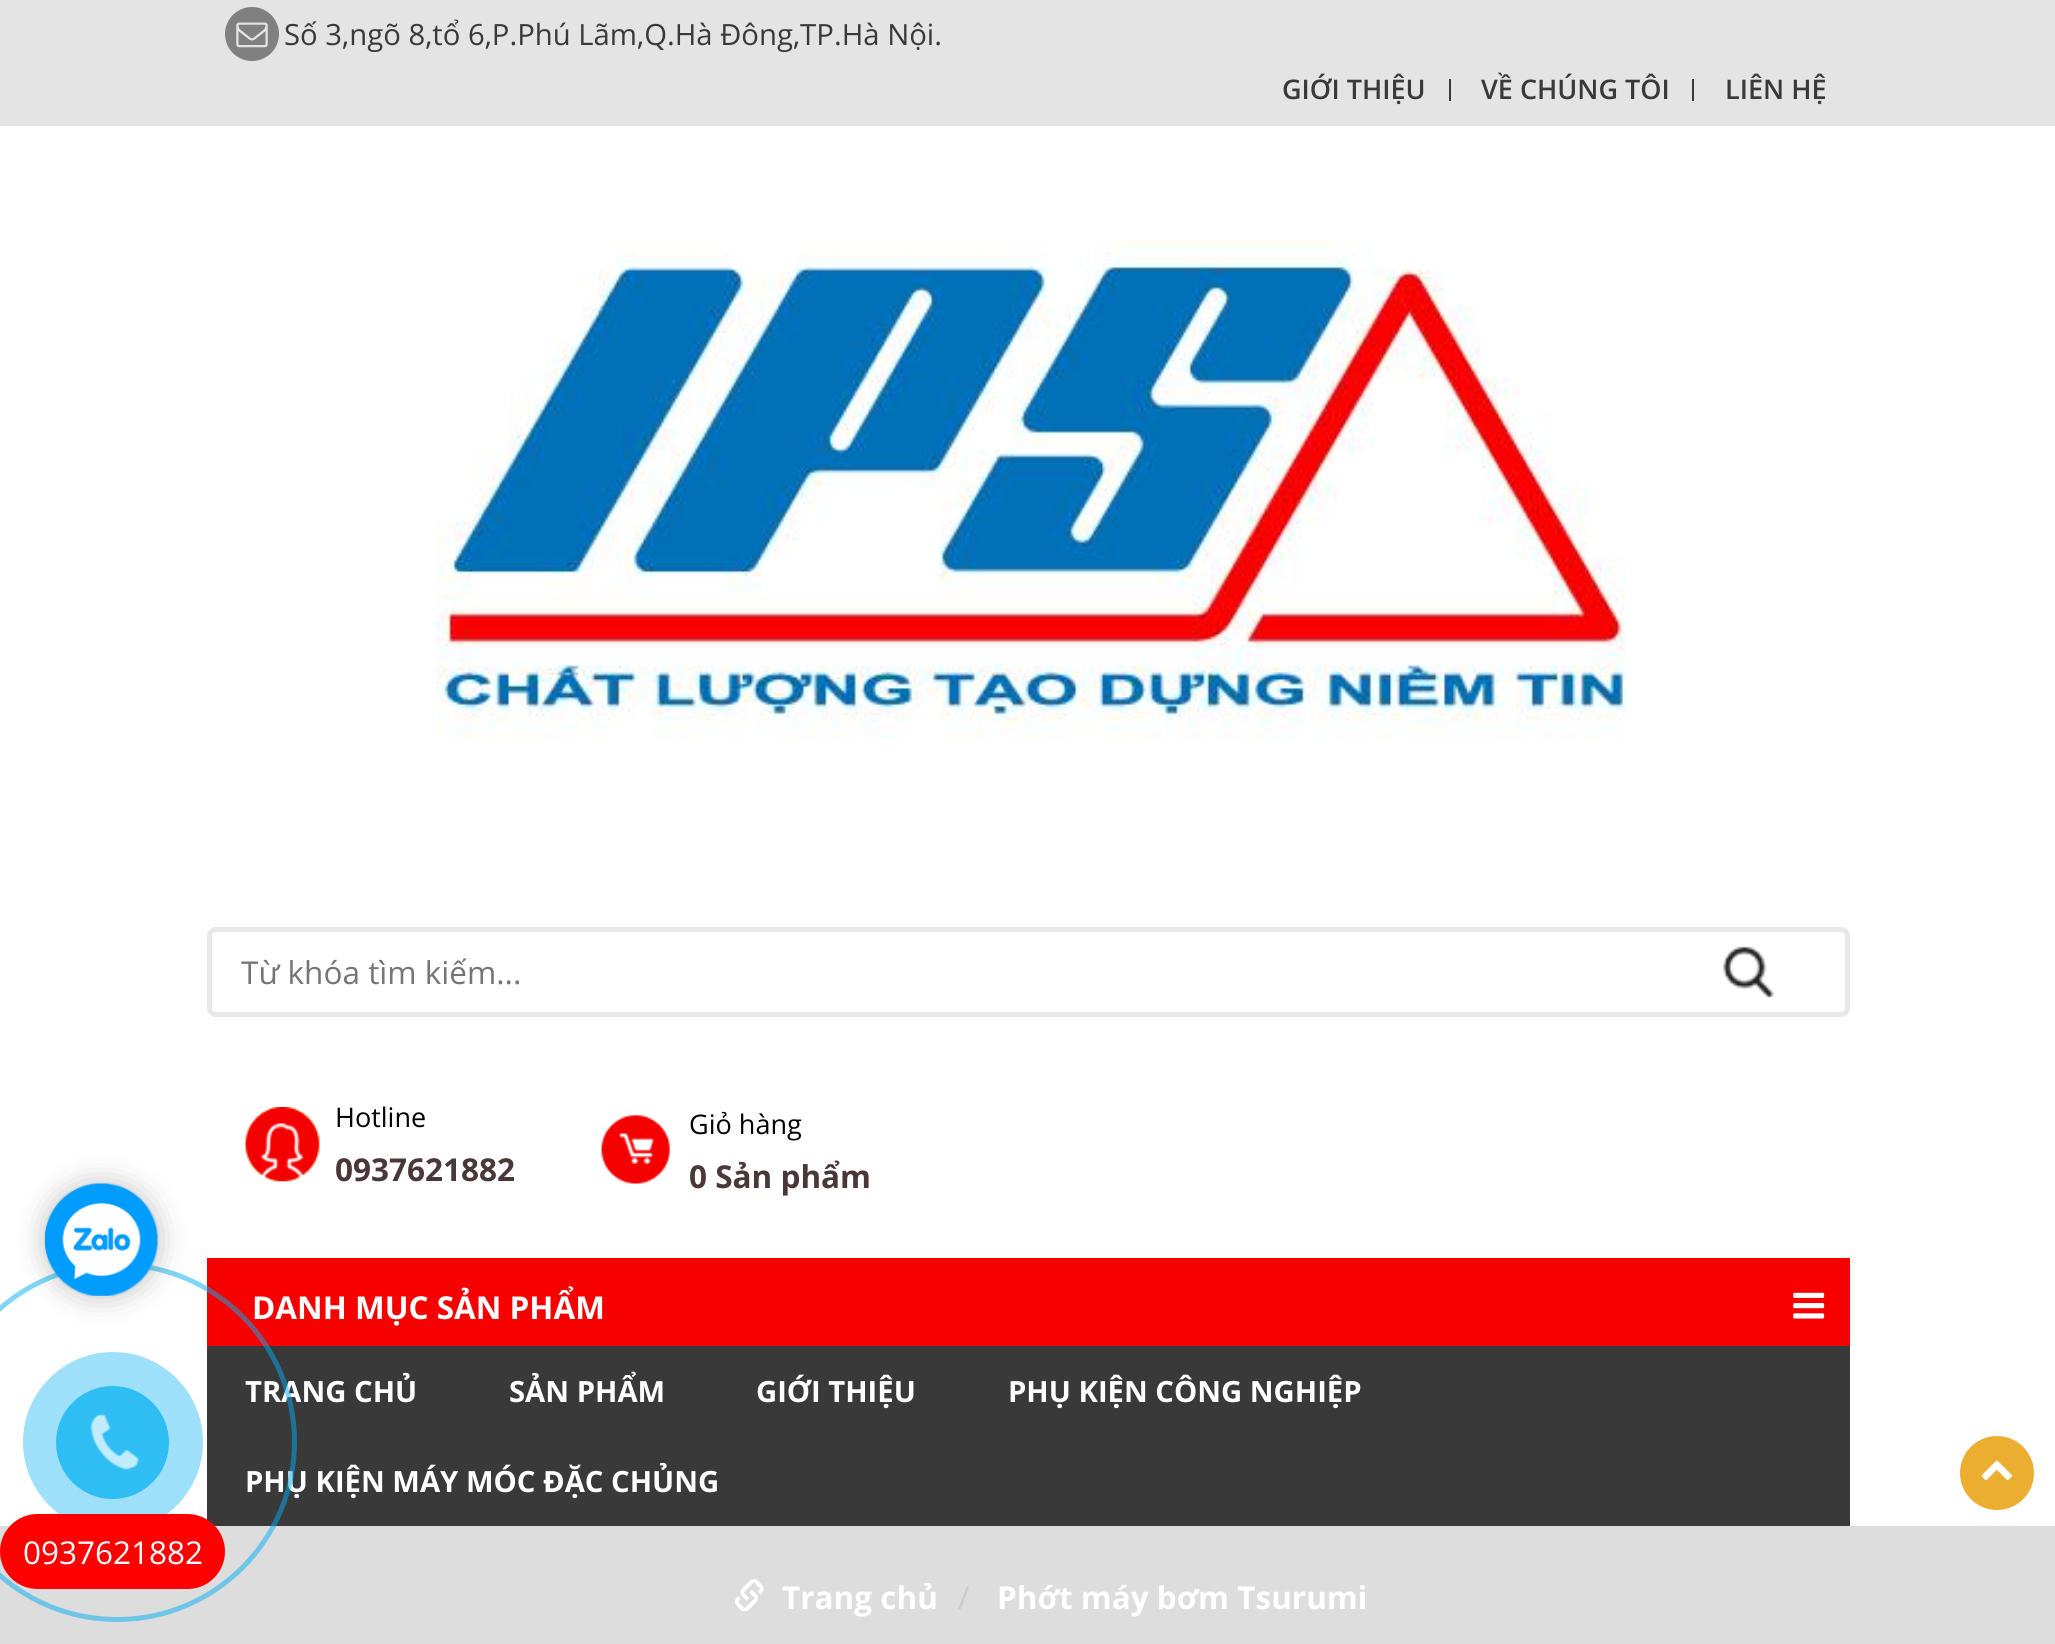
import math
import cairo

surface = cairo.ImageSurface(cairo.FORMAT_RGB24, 2055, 1644)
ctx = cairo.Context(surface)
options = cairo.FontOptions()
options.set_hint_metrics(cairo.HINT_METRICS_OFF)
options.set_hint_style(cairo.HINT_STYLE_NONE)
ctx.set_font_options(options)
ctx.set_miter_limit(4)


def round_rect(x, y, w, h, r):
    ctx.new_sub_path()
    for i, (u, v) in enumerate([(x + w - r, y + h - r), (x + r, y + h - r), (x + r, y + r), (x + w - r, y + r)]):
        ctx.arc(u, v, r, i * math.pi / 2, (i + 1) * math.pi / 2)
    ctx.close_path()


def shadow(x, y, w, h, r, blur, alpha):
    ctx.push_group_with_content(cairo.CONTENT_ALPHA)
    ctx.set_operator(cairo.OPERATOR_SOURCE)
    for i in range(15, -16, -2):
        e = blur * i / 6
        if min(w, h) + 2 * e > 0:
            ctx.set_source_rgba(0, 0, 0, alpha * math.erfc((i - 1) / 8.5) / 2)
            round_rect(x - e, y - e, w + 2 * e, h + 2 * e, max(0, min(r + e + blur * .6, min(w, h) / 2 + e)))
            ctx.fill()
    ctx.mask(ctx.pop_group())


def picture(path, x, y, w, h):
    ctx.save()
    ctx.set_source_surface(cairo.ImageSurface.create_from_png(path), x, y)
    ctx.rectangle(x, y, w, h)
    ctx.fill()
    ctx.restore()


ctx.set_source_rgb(0.894, 0.894, 0.894)
ctx.paint()
ctx.set_source_rgb(0.502, 0.502, 0.502)
ctx.arc(252, 34, 27, 0, 2 * math.pi)
ctx.fill()
picture("img1.png", 236, 22, 32, 26)
ctx.select_font_face("Open Sans")
ctx.set_font_size(29.25)
ctx.set_source_rgb(0.224, 0.224, 0.224)
ctx.move_to(284, 45)
ctx.show_text("Số 3,ngõ 8,tổ 6,P.Phú Lãm,Q.Hà Đông,TP.Hà Nội.")
ctx.rectangle(1449, 79, 2, 22)
ctx.fill()
ctx.select_font_face("Open Sans SemiBold")
ctx.set_font_size(27)
ctx.move_to(1282, 99)
ctx.show_text("GIỚI THIỆU")
ctx.rectangle(1692, 79, 2, 22)
ctx.fill()
ctx.move_to(1481, 99)
ctx.show_text("VỀ CHÚNG TÔI")
ctx.move_to(1725, 99)
ctx.show_text("LIÊN HỆ")
ctx.set_source_rgb(1, 1, 1)
ctx.rectangle(0, 126, 2055, 1400)
ctx.fill()
picture("img2.png", 435, 240, 1192, 500)
round_rect(209.5, 929.5, 1638, 85, 6.5)
ctx.set_source_rgb(0.91, 0.91, 0.91)
ctx.set_line_width(5)
ctx.stroke()
ctx.select_font_face("Open Sans")
ctx.set_font_size(31.5)
ctx.set_source_rgb(0.459, 0.459, 0.459)
ctx.move_to(241, 984)
ctx.show_text("Từ khóa tìm kiếm...")
picture("img3.png", 1723, 946, 51, 52)
picture("img4.png", 245, 1107, 75, 75)
ctx.set_font_size(27)
ctx.set_source_rgb(0, 0, 0)
ctx.move_to(335, 1127)
ctx.show_text("Hotline")
ctx.select_font_face("Open Sans", cairo.FONT_SLANT_NORMAL, cairo.FONT_WEIGHT_BOLD)
ctx.set_font_size(31.5)
ctx.set_source_rgb(0.29, 0.216, 0.216)
ctx.move_to(335, 1181)
ctx.show_text("0937621882")
picture("img5.png", 601, 1115, 69, 69)
ctx.select_font_face("Open Sans")
ctx.set_font_size(27)
ctx.set_source_rgb(0, 0, 0)
ctx.move_to(689, 1134)
ctx.show_text("Giỏ hàng")
ctx.select_font_face("Open Sans", cairo.FONT_SLANT_NORMAL, cairo.FONT_WEIGHT_BOLD)
ctx.set_font_size(31.5)
ctx.set_source_rgb(0.29, 0.216, 0.216)
ctx.move_to(689, 1188)
ctx.show_text("0 Sản phẩm")
ctx.set_source_rgb(0.224, 0.224, 0.224)
ctx.rectangle(207, 1346, 1643, 180)
ctx.fill()
ctx.set_source_rgb(0.961, 0, 0)
ctx.rectangle(207, 1258, 1643, 88)
ctx.fill()
ctx.set_source_rgb(1, 1, 1)
ctx.move_to(252, 1319)
ctx.show_text("DANH MỤC SẢN PHẨM")
ctx.set_font_size(29.25)
ctx.move_to(245, 1402)
ctx.show_text("TRANG CHỦ")
ctx.move_to(245, 1492)
ctx.show_text("PHỤ KIỆN MÁY MÓC ĐẶC CHỦNG")
ctx.set_source_rgb(0.867, 0.867, 0.867)
ctx.rectangle(0, 1526, 2055, 118)
ctx.fill()
ctx.arc(117, 1442, 177.5, 0, 2 * math.pi)
ctx.set_source_rgba(0, 0.686, 0.949, 0.5)
ctx.stroke()
ctx.set_source_rgb(0, 0, 0)
shadow(45, 1184, 113, 112, 56, 14.5, 0.25)
picture("img6.png", 45, 1183, 113, 113)
picture("img7.png", 1793, 1292, 32, 27)
ctx.set_source_rgb(1, 1, 1)
ctx.move_to(509, 1402)
ctx.show_text("SẢN PHẨM")
ctx.move_to(756, 1402)
ctx.show_text("GIỚI THIỆU")
ctx.move_to(1008, 1402)
ctx.show_text("PHỤ KIỆN CÔNG NGHIỆP")
ctx.set_source_rgb(0.922, 0.682, 0.188)
ctx.new_path()
ctx.arc(1997, 1473, 37, 0, 2 * math.pi)
ctx.fill()
picture("img8.png", 1981, 1460, 31, 21)
ctx.set_source_rgba(0, 0.686, 0.949, 0.38)
ctx.arc(113, 1442, 90, 0, 2 * math.pi)
ctx.fill()
ctx.set_source_rgb(0.184, 0.745, 0.957)
ctx.arc(112.5, 1442.5, 56.5, 0, 2 * math.pi)
ctx.fill()
picture("img9.png", 90, 1413, 49, 57)
ctx.set_source_rgb(1, 0, 0)
round_rect(0, 1514, 225, 75, 37.5)
ctx.fill()
ctx.select_font_face("Open Sans")
ctx.set_font_size(31.5)
ctx.set_source_rgb(1, 1, 1)
ctx.move_to(23, 1564)
ctx.show_text("0937621882")
picture("img10.png", 735, 1579, 29, 33)
ctx.select_font_face("Open Sans", cairo.FONT_SLANT_NORMAL, cairo.FONT_WEIGHT_BOLD)
ctx.move_to(782, 1609)
ctx.show_text("Trang chủ")
ctx.select_font_face("Open Sans")
ctx.set_source_rgb(0.8, 0.8, 0.8)
ctx.move_to(958, 1609)
ctx.show_text("/")
ctx.select_font_face("Open Sans", cairo.FONT_SLANT_NORMAL, cairo.FONT_WEIGHT_BOLD)
ctx.set_source_rgb(1, 1, 1)
ctx.move_to(997, 1609)
ctx.show_text("Phớt máy bơm Tsurumi")
surface.write_to_png("page.png")
